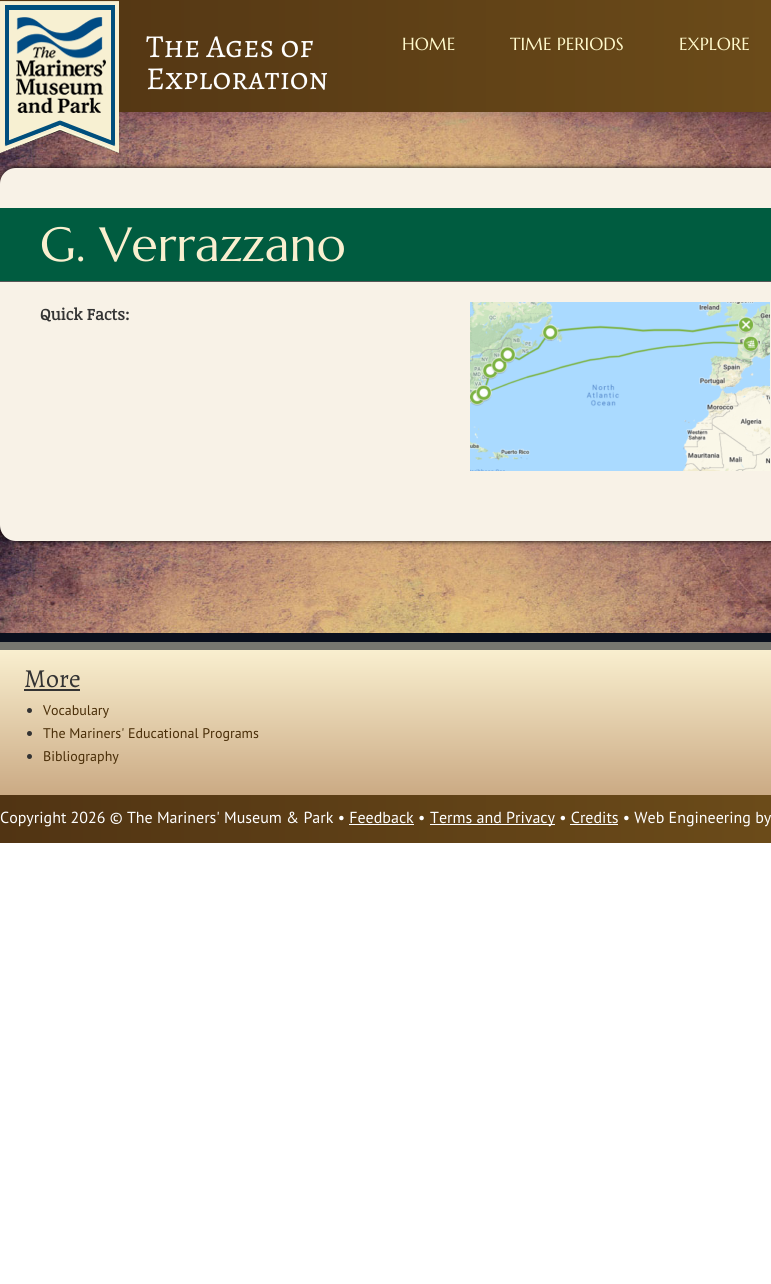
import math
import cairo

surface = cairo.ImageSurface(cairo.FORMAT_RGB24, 771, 1284)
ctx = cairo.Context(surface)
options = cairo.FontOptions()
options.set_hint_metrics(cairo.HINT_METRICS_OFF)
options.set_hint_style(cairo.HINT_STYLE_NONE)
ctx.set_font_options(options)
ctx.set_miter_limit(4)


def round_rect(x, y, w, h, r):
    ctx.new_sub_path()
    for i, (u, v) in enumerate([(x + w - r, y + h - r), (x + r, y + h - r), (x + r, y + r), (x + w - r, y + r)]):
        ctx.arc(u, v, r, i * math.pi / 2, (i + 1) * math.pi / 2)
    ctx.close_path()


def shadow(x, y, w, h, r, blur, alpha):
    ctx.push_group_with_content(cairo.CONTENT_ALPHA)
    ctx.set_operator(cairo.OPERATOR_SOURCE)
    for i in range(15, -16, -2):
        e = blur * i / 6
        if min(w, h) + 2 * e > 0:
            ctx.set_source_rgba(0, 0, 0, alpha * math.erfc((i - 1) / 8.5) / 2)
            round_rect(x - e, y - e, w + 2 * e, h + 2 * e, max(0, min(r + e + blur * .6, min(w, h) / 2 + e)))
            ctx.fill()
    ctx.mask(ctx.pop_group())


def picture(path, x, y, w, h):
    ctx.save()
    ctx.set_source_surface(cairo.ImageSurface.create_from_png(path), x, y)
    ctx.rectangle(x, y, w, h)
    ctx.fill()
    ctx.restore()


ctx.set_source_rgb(1, 1, 1)
ctx.paint()
gradient = cairo.LinearGradient(0, 56, 771, 56)
gradient.add_color_stop_rgba(0, 0.318, 0.204, 0.075, 1)
gradient.add_color_stop_rgba(1, 0.42, 0.294, 0.098, 1)
ctx.set_source(gradient)
ctx.rectangle(0, 0, 771, 112)
ctx.fill()
picture("img2.png", 0, 112, 771, 521)
picture("img1.png", 0, 1, 119, 152)
ctx.select_font_face("Alegreya SC")
ctx.set_font_size(32)
ctx.set_source_rgb(1, 1, 1)
ctx.move_to(146, 57)
ctx.show_text("The Ages of")
ctx.move_to(146, 89)
ctx.show_text("Exploration")
ctx.select_font_face("Marcellus")
ctx.set_font_size(17.5)
ctx.set_source_rgb(1, 0.976, 0.796)
ctx.move_to(402, 50)
ctx.show_text("HOME")
ctx.move_to(510, 50)
ctx.show_text("TIME PERIODS")
ctx.move_to(679, 50)
ctx.show_text("EXPLORE")
ctx.set_source_rgb(0.039, 0.059, 0.114)
ctx.rectangle(0, 633, 771, 9)
ctx.fill()
ctx.set_source_rgb(0, 0, 0)
shadow(0, 168, 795, 373, 16, 2.5, 1)
ctx.set_source_rgb(0.969, 0.949, 0.906)
ctx.new_path()
ctx.move_to(16, 168)
ctx.line_to(771, 168)
ctx.line_to(771, 541)
ctx.line_to(16, 541)
ctx.curve_to(7, 541, 0, 534, 0, 525)
ctx.line_to(0, 184)
ctx.curve_to(0, 175, 7, 168, 16, 168)
ctx.close_path()
ctx.fill()
ctx.set_source_rgb(0, 0.361, 0.251)
ctx.rectangle(0, 208, 771, 73)
ctx.fill()
ctx.set_source_rgb(0.341, 0.341, 0.341)
ctx.rectangle(0, 281, 771, 1)
ctx.fill()
ctx.set_font_size(48)
ctx.set_source_rgb(0.976, 0.937, 0.812)
ctx.move_to(40, 261)
ctx.show_text("G. Verrazzano")
ctx.select_font_face("Noticia Text", cairo.FONT_SLANT_NORMAL, cairo.FONT_WEIGHT_BOLD)
ctx.set_font_size(16)
ctx.set_source_rgb(0.2, 0.2, 0.2)
ctx.move_to(40, 320)
ctx.show_text("Quick Facts:")
picture("img3.png", 470, 302, 300, 169)
gradient = cairo.LinearGradient(386, 650, 386, 795)
gradient.add_color_stop_rgba(0, 0.976, 0.937, 0.812, 1)
gradient.add_color_stop_rgba(1, 0.796, 0.667, 0.518, 1)
ctx.set_source(gradient)
ctx.rectangle(0, 650, 771, 145)
ctx.fill()
ctx.set_source_rgb(0.467, 0.467, 0.439)
ctx.rectangle(0, 642, 771, 8)
ctx.fill()
ctx.select_font_face("Alegreya")
ctx.set_font_size(26)
ctx.set_source_rgb(0.2, 0.2, 0.2)
ctx.move_to(24, 687)
ctx.show_text("More")
ctx.rectangle(24, 689, 56, 2)
ctx.fill()
ctx.arc(29.5, 710.5, 2.5, 0, 2 * math.pi)
ctx.fill()
ctx.select_font_face("PT Sans")
ctx.set_font_size(14)
ctx.set_source_rgb(0.286, 0.176, 0.031)
ctx.move_to(43, 715)
ctx.show_text("Vocabulary")
ctx.set_source_rgb(0.2, 0.2, 0.2)
ctx.new_path()
ctx.arc(29.5, 733.5, 2.5, 0, 2 * math.pi)
ctx.fill()
ctx.set_source_rgb(0.286, 0.176, 0.031)
ctx.move_to(43, 738)
ctx.show_text("The Mariners' Educational Programs")
ctx.set_source_rgb(0.2, 0.2, 0.2)
ctx.new_path()
ctx.arc(29.5, 756.5, 2.5, 0, 2 * math.pi)
ctx.fill()
ctx.set_source_rgb(0.286, 0.176, 0.031)
ctx.move_to(43, 761)
ctx.show_text("Bibliography")
gradient = cairo.LinearGradient(0, 819, 771, 819)
gradient.add_color_stop_rgba(0, 0.318, 0.204, 0.075, 1)
gradient.add_color_stop_rgba(1, 0.42, 0.294, 0.098, 1)
ctx.set_source(gradient)
ctx.rectangle(0, 795, 771, 48)
ctx.fill()
ctx.set_font_size(16)
ctx.set_source_rgb(1, 1, 1)
ctx.move_to(0, 823)
ctx.show_text("Copyright 2026 © The Mariners' Museum & Park • Feedback •")
ctx.rectangle(430, 824, 125, 1)
ctx.fill()
ctx.move_to(430, 823)
ctx.show_text("Terms and Privacy • Credits • Web Engineering by")
ctx.rectangle(349, 824, 65, 1)
ctx.fill()
ctx.rectangle(570, 824, 48, 1)
ctx.fill()
surface.write_to_png("page.png")
